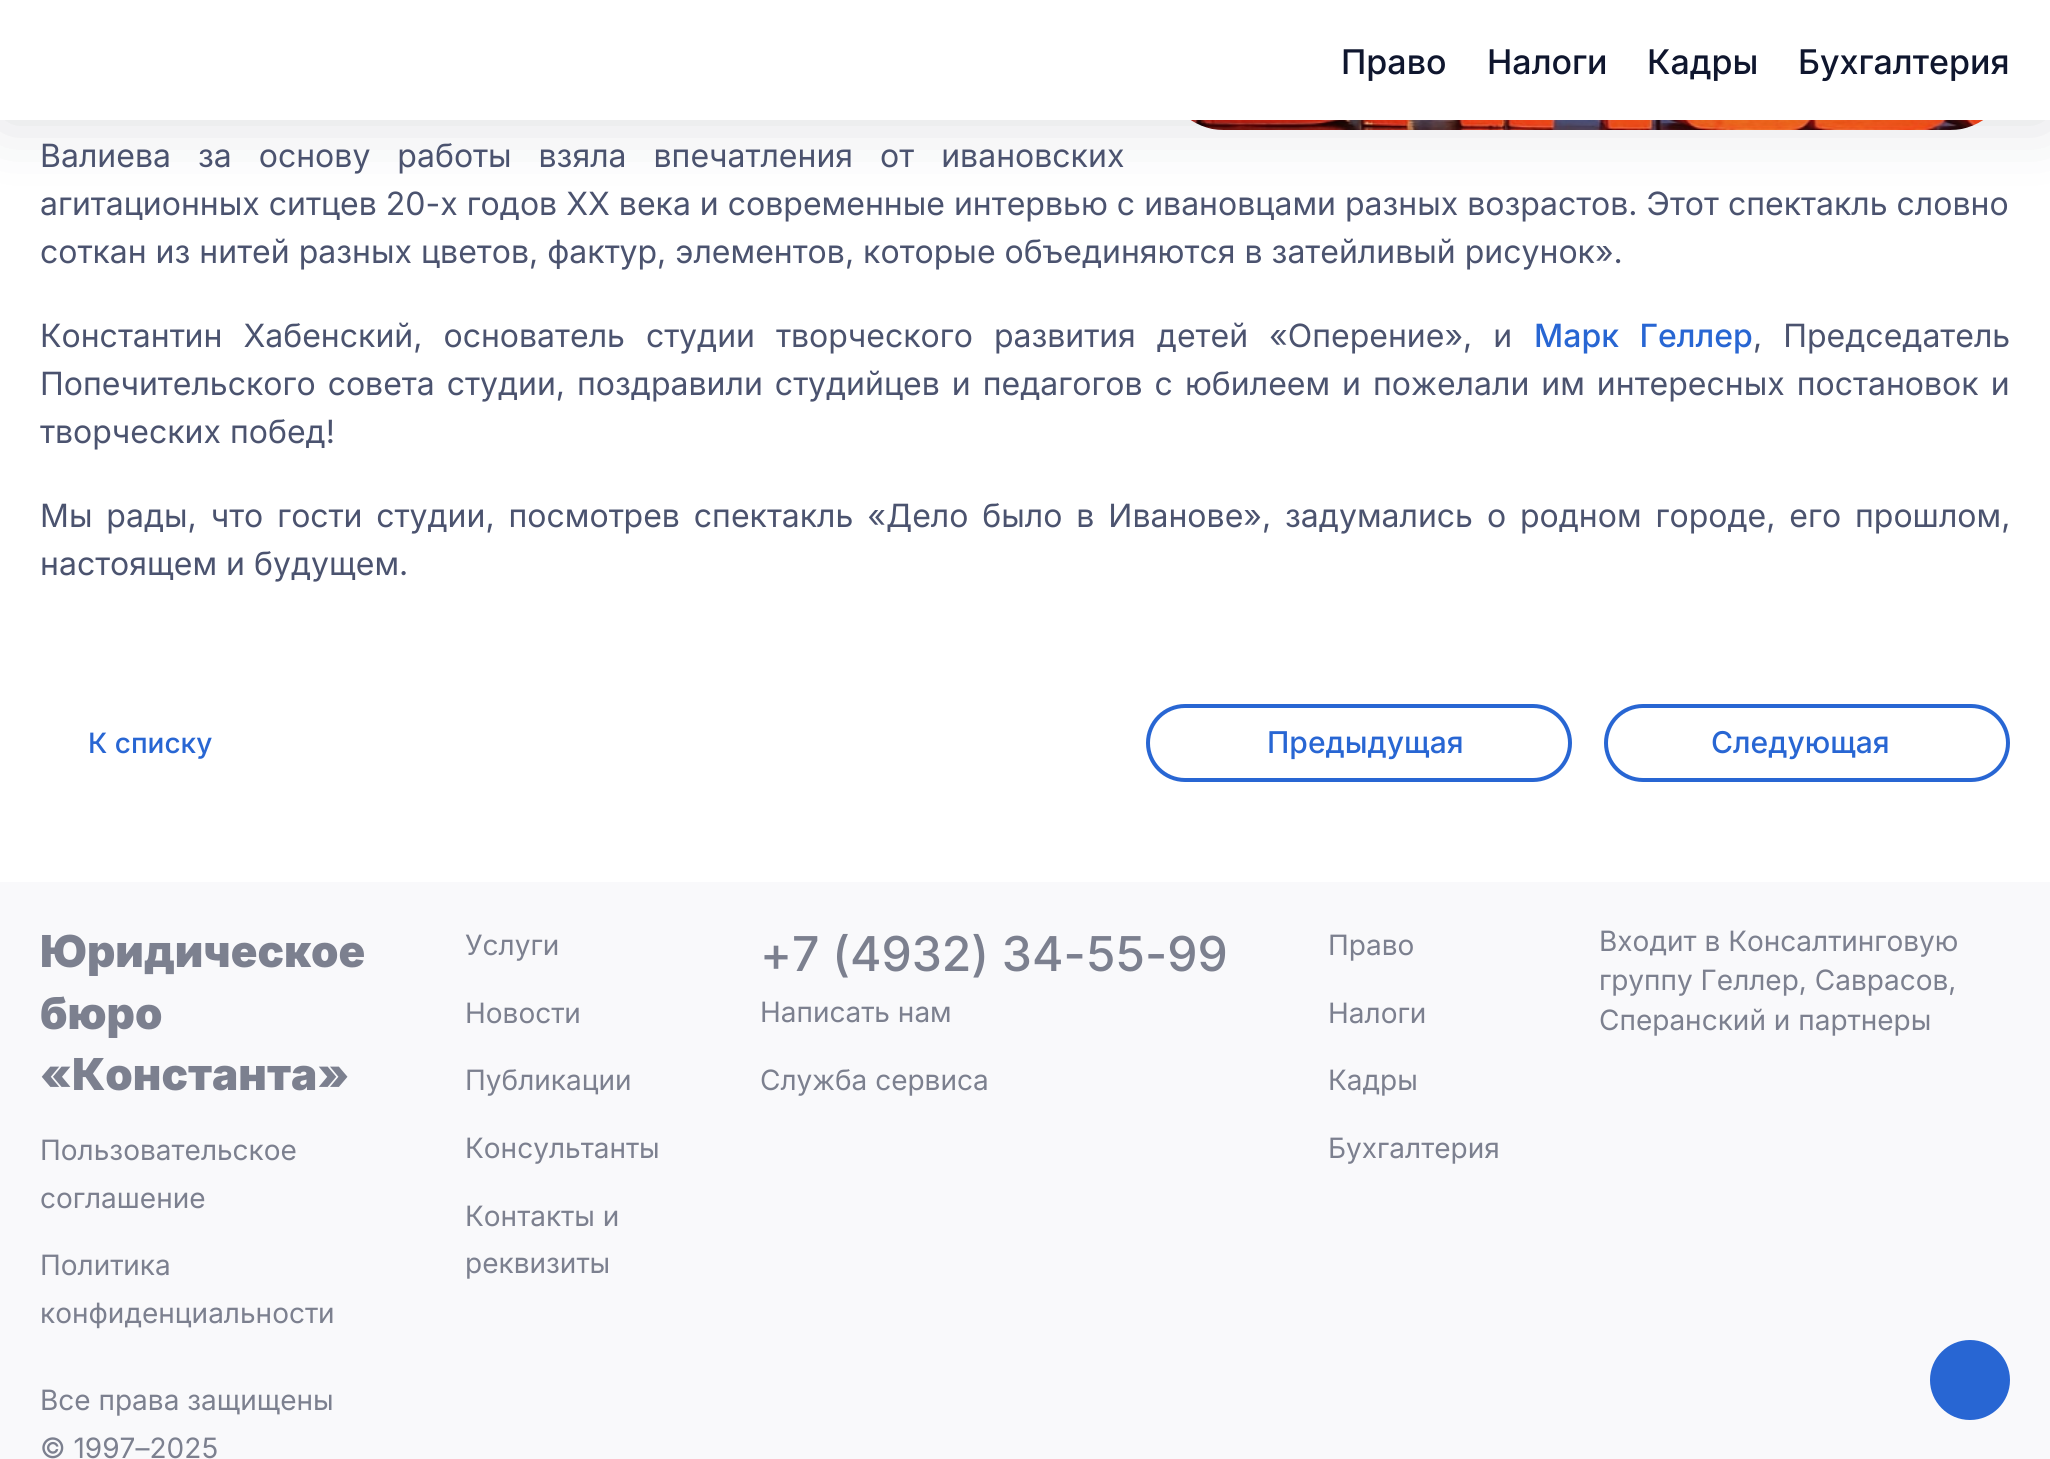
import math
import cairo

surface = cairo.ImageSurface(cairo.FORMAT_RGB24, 2050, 1459)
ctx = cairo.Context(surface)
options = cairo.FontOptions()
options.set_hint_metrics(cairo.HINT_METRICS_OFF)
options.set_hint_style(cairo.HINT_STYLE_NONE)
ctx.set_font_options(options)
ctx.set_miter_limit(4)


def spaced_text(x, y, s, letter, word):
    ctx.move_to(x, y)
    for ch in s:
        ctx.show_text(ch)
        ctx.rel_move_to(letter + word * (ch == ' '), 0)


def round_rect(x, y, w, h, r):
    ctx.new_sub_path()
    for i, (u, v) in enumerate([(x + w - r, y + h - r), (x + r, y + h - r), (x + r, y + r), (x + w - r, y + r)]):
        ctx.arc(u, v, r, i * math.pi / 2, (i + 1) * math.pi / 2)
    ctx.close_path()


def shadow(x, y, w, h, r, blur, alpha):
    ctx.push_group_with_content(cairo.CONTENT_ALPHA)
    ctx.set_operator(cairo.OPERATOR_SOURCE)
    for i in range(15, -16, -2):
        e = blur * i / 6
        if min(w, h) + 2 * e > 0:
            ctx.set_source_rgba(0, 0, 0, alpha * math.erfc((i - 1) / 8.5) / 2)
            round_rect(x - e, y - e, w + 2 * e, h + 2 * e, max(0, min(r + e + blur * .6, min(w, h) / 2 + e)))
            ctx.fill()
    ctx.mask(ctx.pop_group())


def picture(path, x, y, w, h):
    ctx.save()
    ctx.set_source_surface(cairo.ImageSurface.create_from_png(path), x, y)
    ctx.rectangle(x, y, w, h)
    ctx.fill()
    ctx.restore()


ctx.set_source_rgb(1, 1, 1)
ctx.paint()
picture("img1.png", 1190, 120, 794, 10)
ctx.set_source_rgb(0.059, 0.086, 0.18)
shadow(0, 0, 2050, 120, 0, 36, 0.15)
ctx.set_source_rgb(1, 1, 1)
ctx.rectangle(0, 0, 2050, 120)
ctx.fill()
ctx.select_font_face("Inter Medium")
ctx.set_font_size(34)
ctx.set_source_rgb(0.059, 0.086, 0.18)
ctx.move_to(1341, 74)
ctx.show_text("Право")
ctx.move_to(1487, 74)
ctx.show_text("Налоги")
ctx.move_to(1647, 74)
ctx.show_text("Кадры")
ctx.move_to(1798, 74)
ctx.show_text("Бухгалтерия")
ctx.select_font_face("Inter")
ctx.set_font_size(32)
ctx.set_source_rgb(0.294, 0.325, 0.435)
spaced_text(40, 167, "Валиева за основу работы взяла впечатления от ивановских", 0, 18)
ctx.move_to(40, 215)
ctx.show_text("агитационных ситцев 20-х годов XX века и современные интервью с ивановцами разных возрастов. Этот спектакль словно")
ctx.move_to(40, 263)
ctx.show_text("соткан из нитей разных цветов, фактур, элементов, которые объединяются в затейливый рисунок».")
spaced_text(40, 347, "Константин Хабенский, основатель студии творческого развития детей «Оперение», и", 0, 12)
ctx.select_font_face("Inter Medium")
ctx.set_source_rgb(0.157, 0.4, 0.827)
spaced_text(1534, 347, "Марк Геллер", 0, 12)
ctx.select_font_face("Inter")
ctx.set_source_rgb(0.294, 0.325, 0.435)
spaced_text(1753, 347, ", Председатель", 0, 12)
spaced_text(40, 395, "Попечительского совета студии, поздравили студийцев и педагогов с юбилеем и пожелали им интересных постановок и", 0, 3)
ctx.move_to(40, 443)
ctx.show_text("творческих побед!")
spaced_text(40, 527, "Мы рады, что гости студии, посмотрев спектакль «Дело было в Иванове», задумались о родном городе, его прошлом,", 0, 4.9)
ctx.move_to(40, 575)
ctx.show_text("настоящем и будущем.")
ctx.select_font_face("Inter Medium")
ctx.set_font_size(28)
ctx.set_source_rgb(0.157, 0.4, 0.827)
ctx.move_to(88, 753)
ctx.show_text("К списку")
round_rect(1148, 706, 422, 74, 37)
ctx.set_line_width(4)
ctx.stroke()
ctx.set_font_size(30)
ctx.move_to(1267, 753)
ctx.show_text("Предыдущая")
round_rect(1606, 706, 402, 74, 37)
ctx.stroke()
ctx.move_to(1711, 753)
ctx.show_text("Следующая")
ctx.set_source_rgb(0.973, 0.976, 0.984)
ctx.rectangle(0, 882, 2050, 577)
ctx.fill()
ctx.select_font_face("Inter Black")
ctx.set_font_size(44)
ctx.set_source_rgb(0.486, 0.502, 0.561)
ctx.move_to(40, 967)
ctx.show_text("Юридическое")
ctx.move_to(40, 1029)
ctx.show_text("бюро")
ctx.move_to(40, 1090)
ctx.show_text("«Константа»")
ctx.select_font_face("Inter")
ctx.set_font_size(28)
ctx.move_to(40, 1160)
ctx.show_text("Пользовательское")
ctx.move_to(40, 1208)
ctx.show_text("соглашение")
ctx.move_to(40, 1275)
ctx.show_text("Политика")
ctx.move_to(40, 1323)
ctx.show_text("конфиденциальности")
ctx.move_to(40, 1410)
ctx.show_text("Все права защищены")
ctx.move_to(40, 1458)
ctx.show_text("© 1997–2025")
ctx.move_to(465, 955)
ctx.show_text("Услуги")
ctx.move_to(465, 1023)
ctx.show_text("Новости")
ctx.move_to(465, 1090)
ctx.show_text("Публикации")
ctx.move_to(465, 1158)
ctx.show_text("Консультанты")
ctx.move_to(465, 1226)
ctx.show_text("Контакты и")
ctx.move_to(465, 1273)
ctx.show_text("реквизиты")
ctx.select_font_face("Inter Medium")
ctx.set_font_size(48)
ctx.move_to(760, 971)
ctx.show_text("+7 (4932) 34-55-99")
ctx.select_font_face("Inter")
ctx.set_font_size(28)
ctx.move_to(760, 1022)
ctx.show_text("Написать нам")
ctx.move_to(760, 1090)
ctx.show_text("Служба сервиса")
ctx.move_to(1328, 955)
ctx.show_text("Право")
ctx.move_to(1328, 1023)
ctx.show_text("Налоги")
ctx.move_to(1328, 1090)
ctx.show_text("Кадры")
ctx.move_to(1328, 1158)
ctx.show_text("Бухгалтерия")
ctx.move_to(1599, 951)
ctx.show_text("Входит в Консалтинговую")
ctx.move_to(1599, 990)
ctx.show_text("группу Геллер, Саврасов,")
ctx.move_to(1599, 1030)
ctx.show_text("Сперанский и партнеры")
ctx.set_source_rgb(0.157, 0.4, 0.827)
ctx.new_path()
ctx.arc(1970, 1380, 40, 0, 2 * math.pi)
ctx.fill()
surface.write_to_png("page.png")
